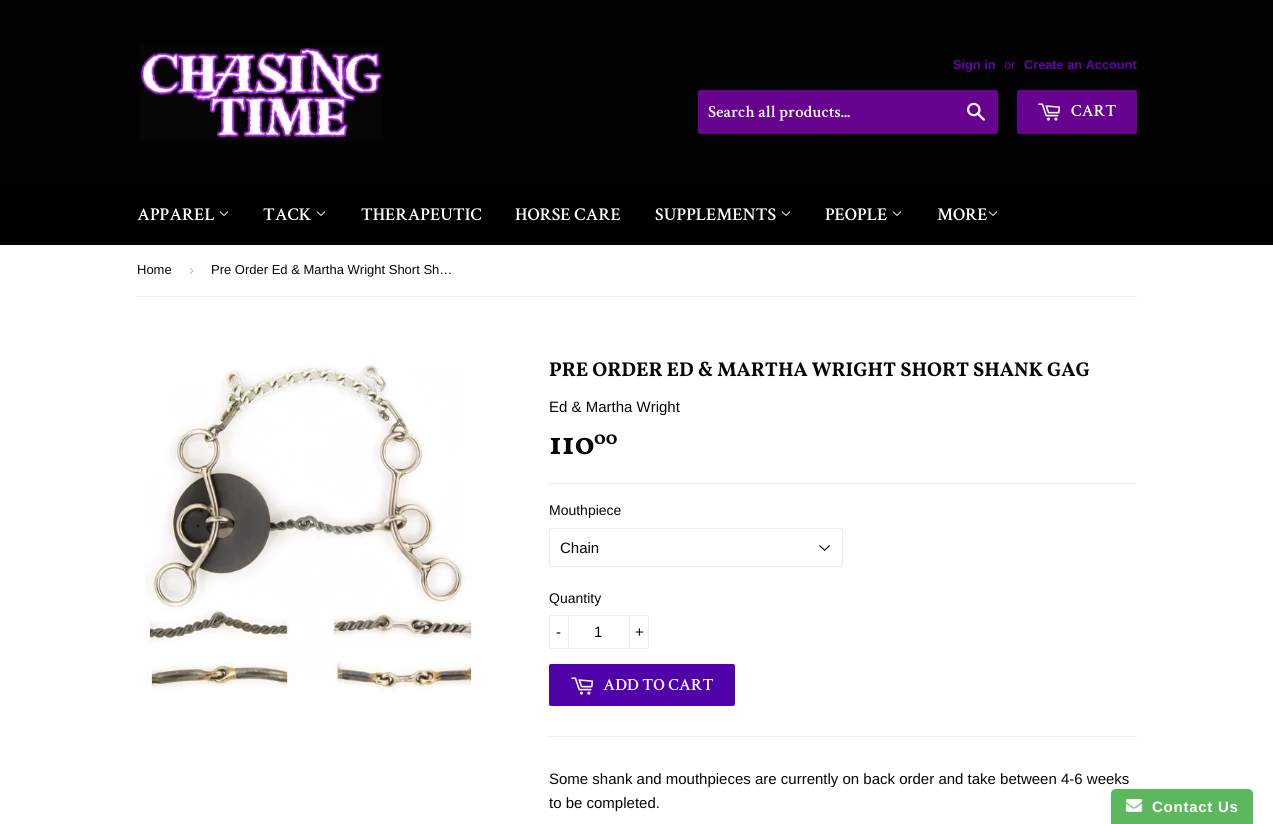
import math
import cairo

surface = cairo.ImageSurface(cairo.FORMAT_RGB24, 1273, 824)
ctx = cairo.Context(surface)
options = cairo.FontOptions()
options.set_hint_metrics(cairo.HINT_METRICS_OFF)
options.set_hint_style(cairo.HINT_STYLE_NONE)
ctx.set_font_options(options)
ctx.set_miter_limit(4)


def spaced_text(x, y, s, letter, word):
    ctx.move_to(x, y)
    for ch in s:
        ctx.show_text(ch)
        ctx.rel_move_to(letter + word * (ch == ' '), 0)


def round_rect(x, y, w, h, r):
    ctx.new_sub_path()
    for i, (u, v) in enumerate([(x + w - r, y + h - r), (x + r, y + h - r), (x + r, y + r), (x + w - r, y + r)]):
        ctx.arc(u, v, r, i * math.pi / 2, (i + 1) * math.pi / 2)
    ctx.close_path()


def picture(path, x, y, w, h):
    ctx.save()
    ctx.set_source_surface(cairo.ImageSurface.create_from_png(path), x, y)
    ctx.rectangle(x, y, w, h)
    ctx.fill()
    ctx.restore()


ctx.set_source_rgb(1, 1, 1)
ctx.paint()
ctx.set_source_rgb(0.008, 0.008, 0.008)
ctx.rectangle(0, 0, 1273, 186)
ctx.fill()
picture("img1.png", 140, 45, 243, 96)
ctx.select_font_face("Liberation Sans", cairo.FONT_SLANT_NORMAL, cairo.FONT_WEIGHT_BOLD)
ctx.set_font_size(12.75)
ctx.set_source_rgb(0.4, 0.008, 0.671)
ctx.move_to(953, 69)
ctx.show_text("Sign in")
ctx.select_font_face("Liberation Sans")
ctx.move_to(1004, 69)
ctx.show_text("or")
ctx.select_font_face("Liberation Sans", cairo.FONT_SLANT_NORMAL, cairo.FONT_WEIGHT_BOLD)
ctx.move_to(1024, 69)
ctx.show_text("Create an Account")
ctx.set_source_rgb(0.404, 0.008, 0.565)
round_rect(698, 90, 300, 44, 2)
ctx.fill()
ctx.select_font_face("Crimson Text SemiBold")
ctx.set_font_size(17)
ctx.set_source_rgb(1, 1, 1)
ctx.move_to(708, 117)
ctx.show_text("Search all products...")
picture("img2.png", 967, 102, 18, 19)
ctx.set_source_rgb(0.404, 0.008, 0.565)
round_rect(1017, 90, 120, 44, 2)
ctx.fill()
picture("img3.png", 1038, 103, 23, 18)
ctx.set_source_rgb(1, 1, 1)
ctx.move_to(1071, 116)
ctx.show_text("CART")
ctx.set_source_rgb(0, 0, 0)
ctx.rectangle(0, 186, 1273, 59)
ctx.fill()
ctx.set_font_size(18)
ctx.set_source_rgb(1, 1, 1)
ctx.move_to(137, 220)
ctx.show_text("APPAREL")
picture("img4.png", 219, 211, 10, 5)
ctx.move_to(263, 220)
ctx.show_text("TACK")
picture("img4.png", 316, 211, 10, 5)
ctx.move_to(361, 220)
ctx.show_text("THERAPEUTIC")
ctx.move_to(515, 220)
ctx.show_text("HORSE CARE")
ctx.move_to(655, 220)
ctx.show_text("SUPPLEMENTS")
picture("img4.png", 781, 211, 10, 5)
ctx.move_to(825, 220)
ctx.show_text("PEOPLE")
picture("img4.png", 892, 211, 10, 5)
ctx.move_to(937, 220)
ctx.show_text("MORE")
picture("img4.png", 988, 211, 10, 5)
ctx.set_source_rgb(0.925, 0.925, 0.925)
ctx.rectangle(137, 296, 1000, 1)
ctx.fill()
ctx.select_font_face("Liberation Sans")
ctx.set_font_size(13)
ctx.set_source_rgb(0.027, 0.027, 0.027)
ctx.move_to(137, 274)
ctx.show_text("Home")
ctx.set_font_size(15)
ctx.set_source_rgb(0.733, 0.733, 0.733)
ctx.move_to(189, 275)
ctx.show_text("›")
ctx.set_font_size(13)
ctx.set_source_rgb(0.027, 0.027, 0.027)
ctx.move_to(211, 274)
ctx.show_text("Pre Order Ed & Martha Wright Short Sh…")
picture("img5.png", 145, 363, 328, 329)
ctx.select_font_face("Vollkorn", cairo.FONT_SLANT_NORMAL, cairo.FONT_WEIGHT_BOLD)
ctx.set_font_size(20)
ctx.move_to(549, 376)
ctx.show_text("PRE ORDER ED & MARTHA WRIGHT SHORT SHANK GAG")
ctx.select_font_face("Liberation Sans")
ctx.set_font_size(15)
ctx.move_to(549, 412)
ctx.show_text("Ed & Martha Wright")
ctx.select_font_face("Vollkorn", cairo.FONT_SLANT_NORMAL, cairo.FONT_WEIGHT_BOLD)
ctx.set_font_size(32)
ctx.move_to(549, 454)
ctx.show_text("110")
ctx.set_font_size(19)
ctx.move_to(594, 444)
ctx.show_text("00")
ctx.set_source_rgb(0.925, 0.925, 0.925)
ctx.rectangle(549, 483, 588, 1)
ctx.fill()
ctx.select_font_face("Liberation Sans")
ctx.set_font_size(14)
ctx.set_source_rgb(0.027, 0.027, 0.027)
ctx.move_to(549, 515)
ctx.show_text("Mouthpiece")
picture("img6.png", 819, 545, 11, 6)
round_rect(549.5, 528.5, 293, 38, 1.5)
ctx.set_source_rgb(0.925, 0.925, 0.925)
ctx.set_line_width(1)
ctx.stroke()
ctx.set_font_size(15)
ctx.set_source_rgb(0.027, 0.027, 0.027)
ctx.move_to(560, 553)
ctx.show_text("Chain")
ctx.set_font_size(14)
ctx.move_to(549, 603)
ctx.show_text("Quantity")
round_rect(549.5, 615.5, 99, 33, 1.5)
ctx.set_source_rgb(0.925, 0.925, 0.925)
ctx.stroke()
ctx.rectangle(568, 615, 1, 34)
ctx.fill()
ctx.set_font_size(15)
ctx.set_source_rgb(0.027, 0.027, 0.027)
ctx.move_to(556, 637)
ctx.show_text("-")
ctx.move_to(594, 637)
ctx.show_text("1")
ctx.set_source_rgb(0.925, 0.925, 0.925)
ctx.rectangle(629, 615, 1, 34)
ctx.fill()
ctx.set_source_rgb(0.027, 0.027, 0.027)
ctx.move_to(635, 637)
ctx.show_text("+")
ctx.set_source_rgb(0.314, 0.004, 0.663)
round_rect(549, 664, 186, 42, 2)
ctx.fill()
picture("img7.png", 571, 677, 23, 18)
ctx.select_font_face("Crimson Text SemiBold")
ctx.set_font_size(17)
ctx.set_source_rgb(1, 1, 1)
ctx.move_to(603, 690)
ctx.show_text("ADD TO CART")
ctx.set_source_rgb(0.925, 0.925, 0.925)
ctx.rectangle(549, 736, 588, 1)
ctx.fill()
ctx.select_font_face("Liberation Sans")
ctx.set_font_size(15)
ctx.set_source_rgb(0.027, 0.027, 0.027)
ctx.move_to(549, 784)
ctx.show_text("Some shank and mouthpieces are currently on back order and take between 4-6 weeks")
ctx.move_to(549, 808)
ctx.show_text("to be completed.")
ctx.set_source_rgb(0.361, 0.722, 0.361)
ctx.new_path()
ctx.move_to(1116, 789)
ctx.line_to(1248, 789)
ctx.curve_to(1251, 789, 1253, 791, 1253, 794)
ctx.line_to(1253, 824)
ctx.line_to(1111, 824)
ctx.line_to(1111, 794)
ctx.curve_to(1111, 791, 1113, 789, 1116, 789)
ctx.close_path()
ctx.fill()
picture("img8.png", 1125, 799, 18, 13)
ctx.select_font_face("Liberation Sans", cairo.FONT_SLANT_NORMAL, cairo.FONT_WEIGHT_BOLD)
ctx.set_source_rgb(1, 1, 1)
spaced_text(1152, 812, "Contact Us", 0.75, 0)
surface.write_to_png("page.png")
